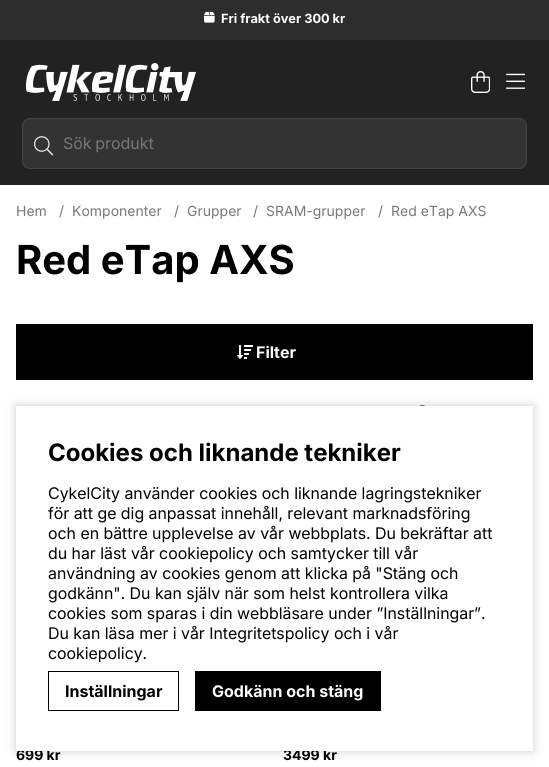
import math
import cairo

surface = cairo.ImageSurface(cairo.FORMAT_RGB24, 549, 767)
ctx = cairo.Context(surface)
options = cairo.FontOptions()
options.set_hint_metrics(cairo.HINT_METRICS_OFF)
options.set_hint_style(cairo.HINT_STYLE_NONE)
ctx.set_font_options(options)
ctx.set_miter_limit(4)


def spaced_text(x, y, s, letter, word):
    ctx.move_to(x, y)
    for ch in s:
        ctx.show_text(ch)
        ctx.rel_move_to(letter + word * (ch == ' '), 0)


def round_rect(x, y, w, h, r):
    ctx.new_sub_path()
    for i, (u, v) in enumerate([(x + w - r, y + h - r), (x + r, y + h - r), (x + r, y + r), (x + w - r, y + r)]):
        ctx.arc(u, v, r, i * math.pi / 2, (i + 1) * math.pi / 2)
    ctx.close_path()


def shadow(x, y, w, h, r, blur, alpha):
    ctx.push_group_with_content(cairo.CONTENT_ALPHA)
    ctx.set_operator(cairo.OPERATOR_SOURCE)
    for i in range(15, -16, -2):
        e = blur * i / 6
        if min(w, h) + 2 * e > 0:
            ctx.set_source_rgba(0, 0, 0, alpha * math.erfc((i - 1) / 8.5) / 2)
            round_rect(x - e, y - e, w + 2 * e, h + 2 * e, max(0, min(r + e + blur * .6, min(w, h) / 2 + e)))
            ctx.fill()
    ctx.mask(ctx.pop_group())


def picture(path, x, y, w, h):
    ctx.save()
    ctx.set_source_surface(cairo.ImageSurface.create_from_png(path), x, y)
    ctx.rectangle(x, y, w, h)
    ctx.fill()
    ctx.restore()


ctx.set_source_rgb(1, 1, 1)
ctx.paint()
ctx.set_source_rgb(0.176, 0.176, 0.176)
ctx.rectangle(0, 0, 549, 40)
ctx.fill()
picture("img1.png", 204, 11, 11, 12)
ctx.select_font_face("Inter", cairo.FONT_SLANT_NORMAL, cairo.FONT_WEIGHT_BOLD)
ctx.set_font_size(12.75)
ctx.set_source_rgb(1, 1, 1)
ctx.move_to(221, 23)
ctx.show_text("Fri frakt över 300 kr")
ctx.set_source_rgb(0.133, 0.133, 0.133)
ctx.rectangle(0, 40, 549, 145)
ctx.fill()
picture("img2.png", 26, 63, 170, 38)
picture("img3.png", 471, 71, 19, 22)
picture("img4.png", 506, 73, 19, 16)
ctx.set_source_rgb(0.2, 0.2, 0.2)
round_rect(22.5, 118.5, 504, 50, 7.5)
ctx.fill_preserve()
ctx.set_source_rgb(0.267, 0.267, 0.267)
ctx.set_line_width(1)
ctx.stroke()
picture("img5.png", 34, 136, 20, 20)
ctx.select_font_face("Inter")
ctx.set_font_size(16)
ctx.set_source_rgb(0.467, 0.467, 0.467)
spaced_text(63, 149, "Sök produkt", 0, -1)
ctx.set_font_size(14)
ctx.move_to(16, 216)
ctx.show_text("Hem")
ctx.move_to(59, 216)
ctx.show_text("/")
ctx.move_to(72, 216)
ctx.show_text("Komponenter")
ctx.move_to(174, 216)
ctx.show_text("/")
ctx.move_to(187, 216)
ctx.show_text("Grupper")
ctx.move_to(253, 216)
ctx.show_text("/")
ctx.move_to(266, 216)
ctx.show_text("SRAM-grupper")
ctx.move_to(378, 216)
ctx.show_text("/")
ctx.move_to(391, 216)
ctx.show_text("Red eTap AXS")
ctx.select_font_face("Inter", cairo.FONT_SLANT_NORMAL, cairo.FONT_WEIGHT_BOLD)
ctx.set_font_size(40)
ctx.set_source_rgb(0, 0, 0)
ctx.move_to(16, 274)
ctx.show_text("Red eTap AXS")
ctx.rectangle(16, 324, 517, 56)
ctx.fill()
picture("img6.png", 237, 345, 16, 14)
ctx.set_font_size(16)
ctx.set_source_rgb(1, 1, 1)
ctx.move_to(256, 358)
ctx.show_text("Filter")
ctx.select_font_face("Inter")
ctx.set_font_size(14)
ctx.set_source_rgb(0.467, 0.467, 0.467)
ctx.move_to(419, 410)
ctx.show_text("-")
ctx.select_font_face("Inter", cairo.FONT_SLANT_NORMAL, cairo.FONT_WEIGHT_BOLD)
ctx.set_source_rgb(0, 0, 0)
ctx.move_to(16, 760)
ctx.show_text("699 kr")
ctx.move_to(283, 760)
ctx.show_text("3499 kr")
ctx.set_source_rgb(0, 0, 0)
shadow(16, 406, 517, 345, 0, 5, 0.2)
ctx.set_source_rgb(1, 1, 1)
ctx.rectangle(16, 406, 517, 345)
ctx.fill()
ctx.set_font_size(24)
ctx.set_source_rgb(0, 0, 0)
ctx.move_to(48, 461)
ctx.show_text("Cookies och liknande tekniker")
ctx.select_font_face("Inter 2")
ctx.set_font_size(16)
ctx.move_to(48, 499)
ctx.show_text("CykelCity använder cookies och liknande lagringstekniker")
ctx.move_to(48, 519)
ctx.show_text("för att ge dig anpassat innehåll, relevant marknadsföring")
ctx.move_to(48, 539)
ctx.show_text("och en bättre upplevelse av vår webbplats. Du bekräftar att")
ctx.move_to(48, 559)
ctx.show_text("du har läst vår cookiepolicy och samtycker till vår")
ctx.move_to(48, 579)
ctx.show_text("användning av cookies genom att klicka på \"Stäng och")
ctx.move_to(48, 599)
ctx.show_text("godkänn\". Du kan själv när som helst kontrollera vilka")
ctx.move_to(48, 619)
ctx.show_text("cookies som sparas i din webbläsare under ”Inställningar”.")
ctx.move_to(48, 639)
ctx.show_text("Du kan läsa mer i vår Integritetspolicy och i vår")
ctx.move_to(48, 659)
ctx.show_text("cookiepolicy.")
ctx.rectangle(48.5, 671.5, 130, 39)
ctx.stroke()
ctx.select_font_face("Inter", cairo.FONT_SLANT_NORMAL, cairo.FONT_WEIGHT_BOLD)
ctx.move_to(65, 697)
ctx.show_text("Inställningar")
ctx.rectangle(195, 671, 186, 40)
ctx.fill()
ctx.set_source_rgb(1, 1, 1)
ctx.move_to(212, 697)
ctx.show_text("Godkänn och stäng")
surface.write_to_png("page.png")
